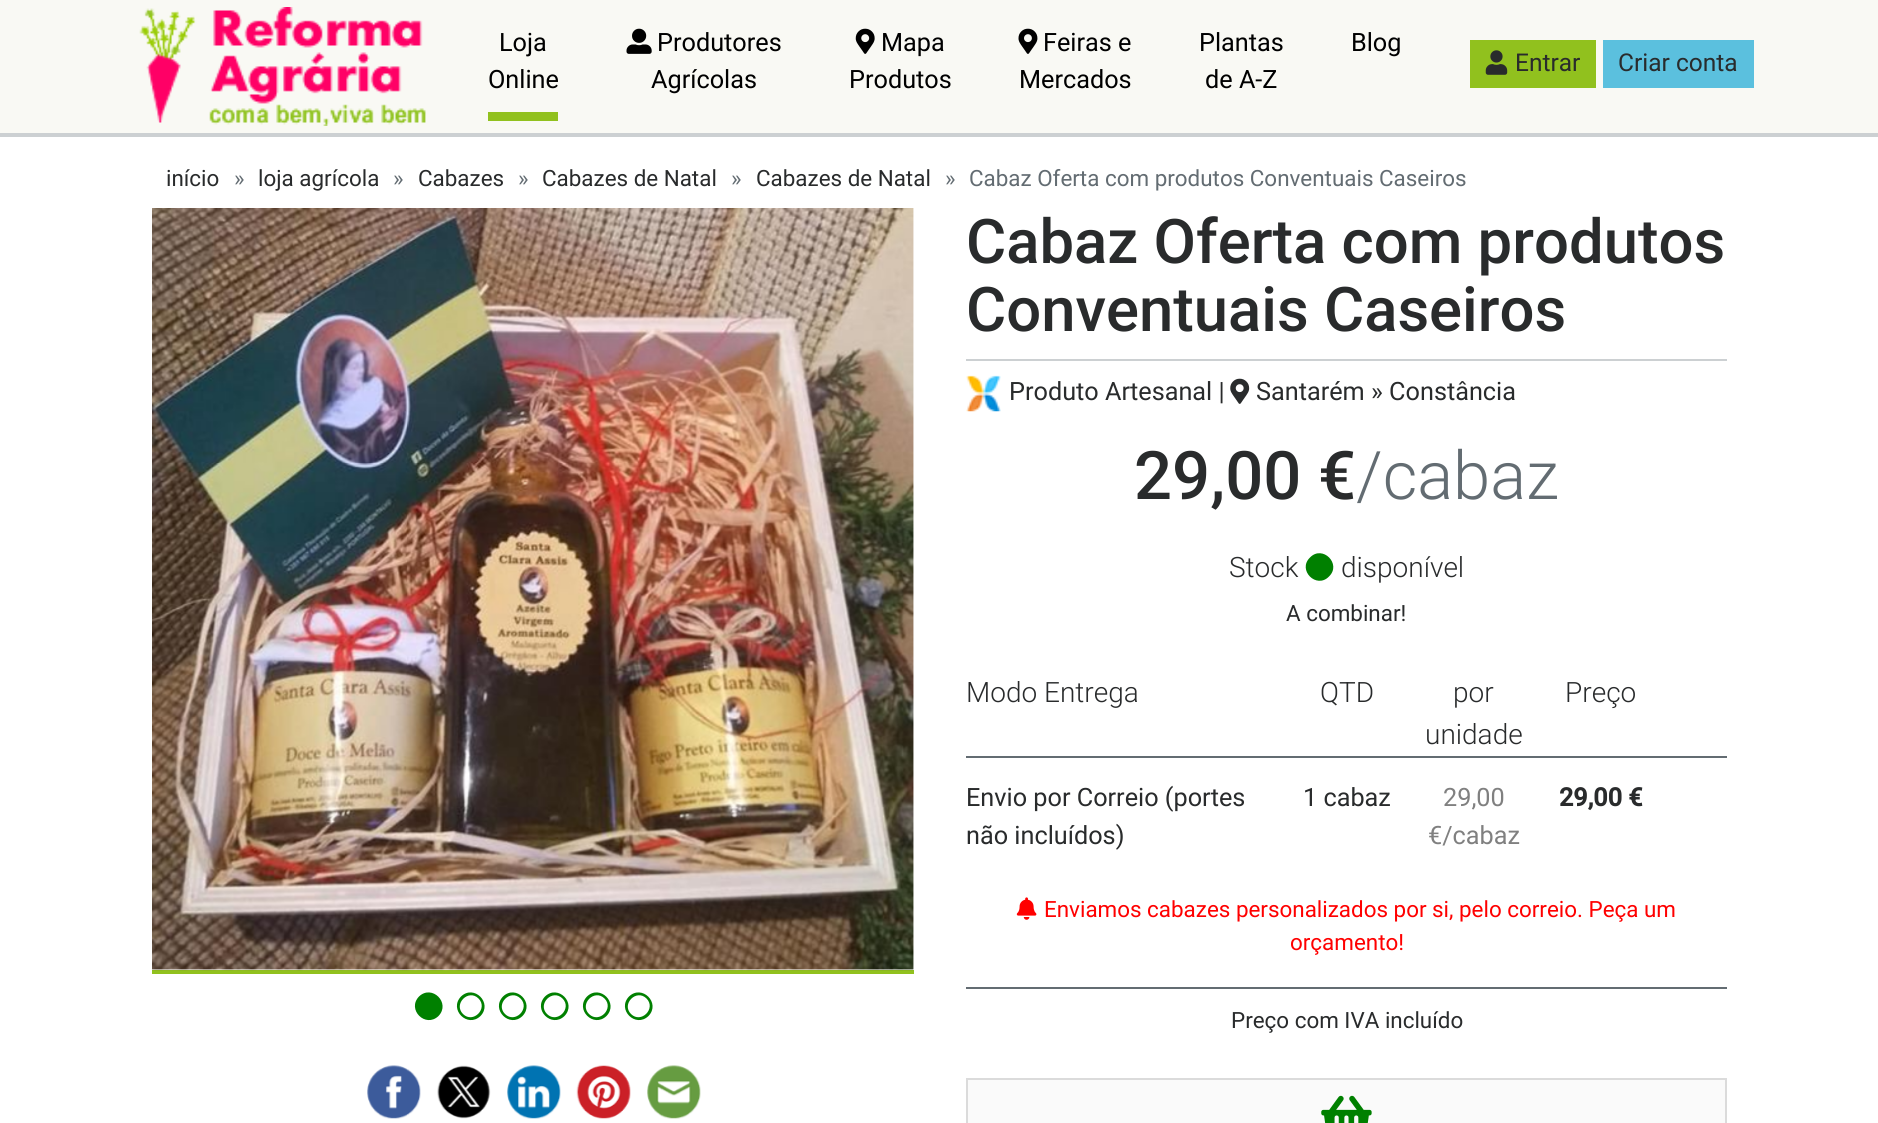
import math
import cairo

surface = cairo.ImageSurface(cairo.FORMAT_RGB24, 1878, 1123)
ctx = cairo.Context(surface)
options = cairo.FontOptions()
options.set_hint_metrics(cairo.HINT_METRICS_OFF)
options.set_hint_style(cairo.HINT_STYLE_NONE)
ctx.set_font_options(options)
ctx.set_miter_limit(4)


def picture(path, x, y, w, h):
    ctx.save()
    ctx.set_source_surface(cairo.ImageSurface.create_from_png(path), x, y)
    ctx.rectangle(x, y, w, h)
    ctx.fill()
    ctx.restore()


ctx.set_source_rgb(1, 1, 1)
ctx.paint()
ctx.set_source_rgb(0.8, 0.816, 0.824)
ctx.new_path()
ctx.move_to(0, 133)
ctx.line_to(0, 137)
ctx.line_to(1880, 137)
ctx.line_to(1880, 4)
ctx.line_to(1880, 133)
ctx.close_path()
ctx.fill()
ctx.set_source_rgb(0.976, 0.973, 0.957)
ctx.rectangle(0, 0, 1878, 133)
ctx.fill()
picture("img1.png", 139, 7, 287, 119)
ctx.set_source_rgb(0.569, 0.757, 0.118)
ctx.rectangle(488, 112, 70, 9)
ctx.fill()
ctx.select_font_face("Roboto")
ctx.set_font_size(25.25)
ctx.set_source_rgb(0, 0, 0)
ctx.move_to(499, 51)
ctx.show_text("Loja")
ctx.move_to(488, 88)
ctx.show_text("Online")
picture("img2.png", 626, 28, 26, 26)
ctx.move_to(657, 51)
ctx.show_text("Produtores")
ctx.move_to(651, 88)
ctx.show_text("Agrícolas")
picture("img3.png", 855, 28, 20, 26)
ctx.move_to(881, 51)
ctx.show_text("Mapa")
ctx.move_to(849, 88)
ctx.show_text("Produtos")
picture("img4.png", 1018, 28, 20, 26)
ctx.move_to(1043, 51)
ctx.show_text("Feiras e")
ctx.move_to(1019, 88)
ctx.show_text("Mercados")
ctx.move_to(1199, 51)
ctx.show_text("Plantas")
ctx.move_to(1205, 88)
ctx.show_text("de A-Z")
ctx.move_to(1351, 51)
ctx.show_text("Blog")
ctx.set_source_rgb(0.569, 0.757, 0.118)
ctx.rectangle(1470, 40, 126, 48)
ctx.fill()
picture("img5.png", 1485, 50, 23, 25)
ctx.set_font_size(24.5)
ctx.set_source_rgb(0.161, 0.169, 0.173)
ctx.move_to(1515, 71)
ctx.show_text("Entrar")
ctx.set_source_rgb(0.357, 0.753, 0.871)
ctx.rectangle(1603, 40, 151, 48)
ctx.fill()
ctx.set_source_rgb(0.161, 0.169, 0.173)
ctx.move_to(1618, 71)
ctx.show_text("Criar conta")
ctx.set_font_size(22.4)
ctx.move_to(166, 186)
ctx.show_text("início")
ctx.set_source_rgb(0.388, 0.424, 0.447)
ctx.move_to(234, 186)
ctx.show_text("»")
ctx.set_source_rgb(0.161, 0.169, 0.173)
ctx.move_to(258, 186)
ctx.show_text("loja agrícola")
ctx.set_source_rgb(0.388, 0.424, 0.447)
ctx.move_to(393, 186)
ctx.show_text("»")
ctx.set_source_rgb(0.161, 0.169, 0.173)
ctx.move_to(418, 186)
ctx.show_text("Cabazes")
ctx.set_source_rgb(0.388, 0.424, 0.447)
ctx.move_to(518, 186)
ctx.show_text("»")
ctx.set_source_rgb(0.161, 0.169, 0.173)
ctx.move_to(542, 186)
ctx.show_text("Cabazes de Natal")
ctx.set_source_rgb(0.388, 0.424, 0.447)
ctx.move_to(731, 186)
ctx.show_text("»")
ctx.set_source_rgb(0.161, 0.169, 0.173)
ctx.move_to(756, 186)
ctx.show_text("Cabazes de Natal")
ctx.set_source_rgb(0.388, 0.424, 0.447)
ctx.move_to(945, 186)
ctx.show_text("»")
ctx.move_to(969, 186)
ctx.show_text("Cabaz Oferta com produtos Conventuais Caseiros")
ctx.set_source_rgb(0.569, 0.757, 0.118)
ctx.rectangle(152, 970, 762, 4)
ctx.fill()
picture("img6.png", 152, 208, 762, 763)
ctx.set_source_rgb(0, 0.502, 0)
ctx.new_path()
ctx.move_to(419, 996.5)
ctx.curve_to(432, 984, 451, 1003, 438.5, 1016)
ctx.curve_to(425.5, 1028.5, 406.5, 1009.5, 419, 996.5)
ctx.close_path()
ctx.fill()
ctx.new_path()
ctx.move_to(461, 996.5)
ctx.curve_to(474, 984, 493, 1003, 480.5, 1016)
ctx.curve_to(467.5, 1028.5, 448.5, 1009.5, 461, 996.5)
ctx.close_path()
ctx.move_to(463, 1014)
ctx.curve_to(473, 1024, 488.5, 1008.5, 478.5, 998.5)
ctx.curve_to(468.5, 988.5, 453, 1004, 463, 1014)
ctx.close_path()
ctx.fill()
ctx.new_path()
ctx.move_to(503, 996.5)
ctx.curve_to(516, 984, 535, 1003, 522.5, 1016)
ctx.curve_to(509.5, 1028.5, 490.5, 1009.5, 503, 996.5)
ctx.close_path()
ctx.move_to(505, 1014)
ctx.curve_to(515, 1024, 530.5, 1008.5, 520.5, 998.5)
ctx.curve_to(510.5, 988.5, 495, 1004, 505, 1014)
ctx.close_path()
ctx.fill()
ctx.new_path()
ctx.move_to(545, 996.5)
ctx.curve_to(558, 984, 577, 1003, 564.5, 1016)
ctx.curve_to(551.5, 1028.5, 532.5, 1009.5, 545, 996.5)
ctx.close_path()
ctx.move_to(547, 1014)
ctx.curve_to(557, 1024, 572.5, 1008.5, 562.5, 998.5)
ctx.curve_to(552.5, 988.5, 537, 1004, 547, 1014)
ctx.close_path()
ctx.fill()
ctx.new_path()
ctx.move_to(587, 996.5)
ctx.curve_to(600, 984, 619, 1003, 606.5, 1016)
ctx.curve_to(593.5, 1028.5, 574.5, 1009.5, 587, 996.5)
ctx.close_path()
ctx.move_to(589, 1014)
ctx.curve_to(599, 1024, 614.5, 1008.5, 604.5, 998.5)
ctx.curve_to(594.5, 988.5, 579, 1004, 589, 1014)
ctx.close_path()
ctx.fill()
ctx.new_path()
ctx.move_to(629, 996.5)
ctx.curve_to(642, 984, 661, 1003, 648.5, 1016)
ctx.curve_to(635.5, 1028.5, 616.5, 1009.5, 629, 996.5)
ctx.close_path()
ctx.move_to(631, 1014)
ctx.curve_to(641, 1024, 656.5, 1008.5, 646.5, 998.5)
ctx.curve_to(636.5, 988.5, 621, 1004, 631, 1014)
ctx.close_path()
ctx.fill()
picture("img7.png", 367, 1065, 54, 54)
picture("img8.png", 437, 1065, 54, 54)
picture("img9.png", 507, 1065, 54, 54)
picture("img10.png", 576, 1065, 55, 54)
picture("img11.png", 647, 1065, 54, 54)
ctx.set_source_rgb(0.8, 0.816, 0.824)
ctx.rectangle(966, 359, 761, 2)
ctx.fill()
ctx.select_font_face("Roboto Medium")
ctx.set_font_size(61.6)
ctx.set_source_rgb(0.161, 0.169, 0.173)
ctx.move_to(966, 263)
ctx.show_text("Cabaz Oferta com produtos")
ctx.move_to(966, 331)
ctx.show_text("Conventuais Caseiros")
picture("img12.png", 966, 375, 35, 37)
ctx.select_font_face("Roboto")
ctx.set_font_size(25.25)
ctx.move_to(1009, 400)
ctx.show_text("Produto Artesanal |")
picture("img13.png", 1230, 378, 20, 26)
ctx.move_to(1256, 400)
ctx.show_text("Santarém » Constância")
ctx.select_font_face("Roboto Medium")
ctx.set_font_size(67)
ctx.move_to(1134, 499)
ctx.show_text("29,00 €")
ctx.select_font_face("Roboto Light")
ctx.set_source_rgb(0.388, 0.424, 0.447)
ctx.move_to(1356, 499)
ctx.show_text("/cabaz")
ctx.set_font_size(28)
ctx.set_source_rgb(0.161, 0.169, 0.173)
ctx.move_to(1229, 577)
ctx.show_text("Stock")
ctx.set_source_rgb(0, 0.502, 0)
ctx.new_path()
ctx.move_to(1310, 557.5)
ctx.curve_to(1322.5, 544.5, 1342, 564, 1329, 576.5)
ctx.curve_to(1316.5, 589.5, 1297, 570, 1310, 557.5)
ctx.close_path()
ctx.fill()
ctx.set_source_rgb(0.161, 0.169, 0.173)
ctx.move_to(1341, 577)
ctx.show_text("disponível")
ctx.select_font_face("Roboto")
ctx.set_font_size(22.4)
ctx.move_to(1286, 621)
ctx.show_text("A combinar!")
ctx.set_source_rgb(0.388, 0.424, 0.447)
ctx.rectangle(966, 987, 761, 2)
ctx.fill()
ctx.rectangle(966, 756, 761, 2)
ctx.fill()
ctx.select_font_face("Roboto Light")
ctx.set_font_size(28)
ctx.set_source_rgb(0.161, 0.169, 0.173)
ctx.move_to(966, 702)
ctx.show_text("Modo Entrega")
ctx.move_to(1320, 702)
ctx.show_text("QTD")
ctx.move_to(1453, 702)
ctx.show_text("por")
ctx.move_to(1425, 744)
ctx.show_text("unidade")
ctx.move_to(1565, 702)
ctx.show_text("Preço")
ctx.select_font_face("Roboto")
ctx.set_font_size(25.25)
ctx.move_to(966, 806)
ctx.show_text("Envio por Correio (portes")
ctx.move_to(966, 844)
ctx.show_text("não incluídos)")
ctx.move_to(1303, 806)
ctx.show_text("1 cabaz")
ctx.set_source_rgb(0.502, 0.502, 0.502)
ctx.move_to(1443, 806)
ctx.show_text("29,00")
ctx.move_to(1428, 844)
ctx.show_text("€/cabaz")
ctx.select_font_face("Roboto", cairo.FONT_SLANT_NORMAL, cairo.FONT_WEIGHT_BOLD)
ctx.set_source_rgb(0.161, 0.169, 0.173)
ctx.move_to(1559, 806)
ctx.show_text("29,00 €")
picture("img14.png", 1016, 897, 21, 23)
ctx.select_font_face("Roboto")
ctx.set_font_size(22.4)
ctx.set_source_rgb(1, 0, 0)
ctx.move_to(1044, 917)
ctx.show_text("Enviamos cabazes personalizados por si, pelo correio. Peça um")
ctx.move_to(1290, 950)
ctx.show_text("orçamento!")
ctx.set_source_rgb(0.161, 0.169, 0.173)
ctx.move_to(1231, 1028)
ctx.show_text("Preço com IVA incluído")
ctx.set_source_rgb(0.98, 0.98, 0.98)
ctx.rectangle(967, 1079, 759, 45)
ctx.fill_preserve()
ctx.set_source_rgb(0.859, 0.859, 0.859)
ctx.stroke()
picture("img15.png", 1321, 1095, 51, 28)
surface.write_to_png("page.png")
